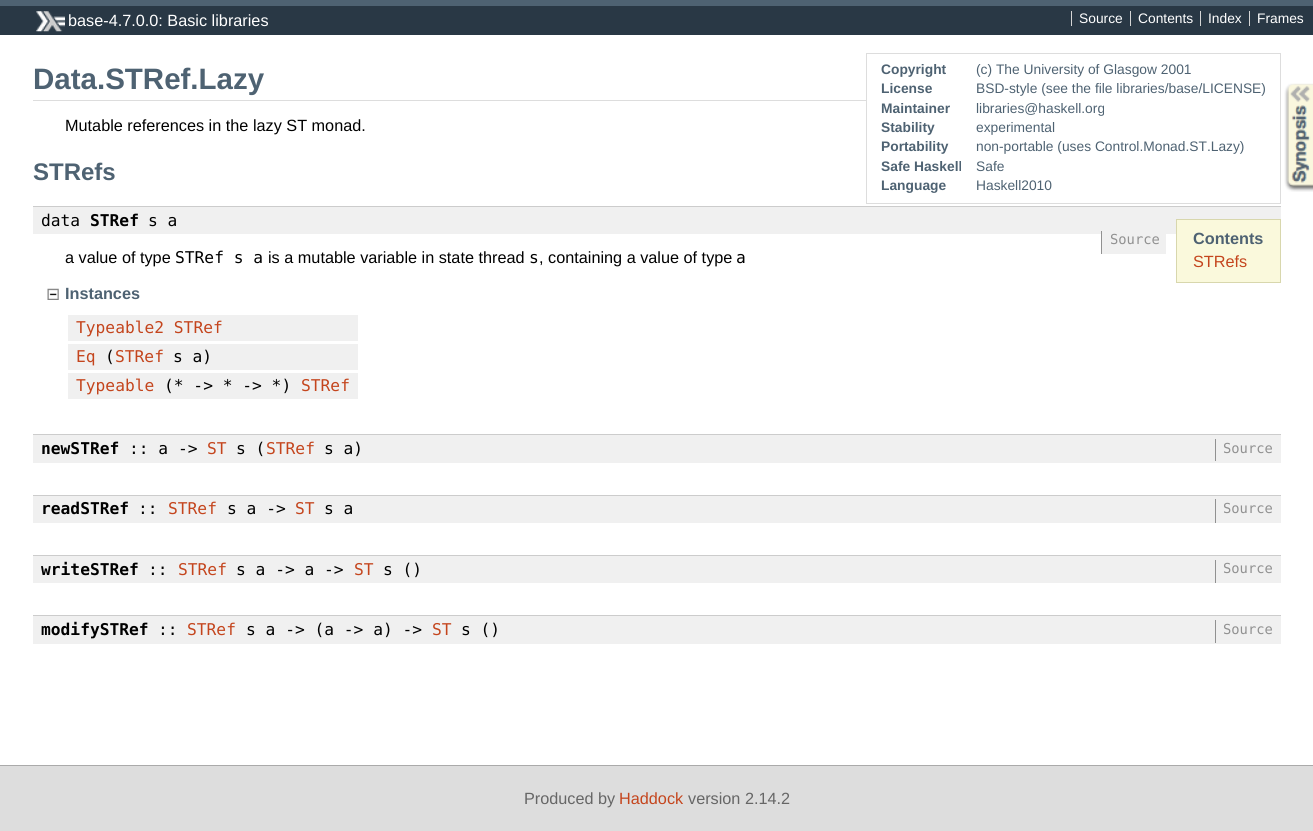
import math
import cairo

surface = cairo.ImageSurface(cairo.FORMAT_RGB24, 1313, 831)
ctx = cairo.Context(surface)
options = cairo.FontOptions()
options.set_hint_metrics(cairo.HINT_METRICS_OFF)
options.set_hint_style(cairo.HINT_STYLE_NONE)
ctx.set_font_options(options)
ctx.set_miter_limit(4)


def picture(path, x, y, w, h):
    ctx.save()
    ctx.set_source_surface(cairo.ImageSurface.create_from_png(path), x, y)
    ctx.rectangle(x, y, w, h)
    ctx.fill()
    ctx.restore()


ctx.set_source_rgb(1, 1, 1)
ctx.paint()
ctx.set_source_rgb(0.161, 0.22, 0.271)
ctx.rectangle(0, 6, 1313, 29)
ctx.fill()
ctx.set_source_rgb(0.306, 0.384, 0.447)
ctx.rectangle(0, 0, 1313, 6)
ctx.fill()
picture("img1.png", 36, 11, 29, 21)
ctx.select_font_face("Liberation Sans")
ctx.set_font_size(16.25)
ctx.set_source_rgb(1, 1, 1)
ctx.move_to(68, 26)
ctx.show_text("base-4.7.0.0: Basic libraries")
ctx.set_font_size(13.8)
ctx.move_to(1079, 23)
ctx.show_text("Source")
ctx.set_source_rgb(0.835, 0.835, 0.835)
ctx.rectangle(1071, 11, 1, 15)
ctx.fill()
ctx.set_source_rgb(1, 1, 1)
ctx.move_to(1138, 23)
ctx.show_text("Contents")
ctx.set_source_rgb(0.835, 0.835, 0.835)
ctx.rectangle(1130, 11, 1, 15)
ctx.fill()
ctx.set_source_rgb(1, 1, 1)
ctx.move_to(1208, 23)
ctx.show_text("Index")
ctx.set_source_rgb(0.835, 0.835, 0.835)
ctx.rectangle(1200, 11, 1, 15)
ctx.fill()
ctx.set_source_rgb(1, 1, 1)
ctx.move_to(1257, 23)
ctx.show_text("Frames")
ctx.set_source_rgb(0.835, 0.835, 0.835)
ctx.rectangle(1249, 11, 1, 15)
ctx.fill()
ctx.set_source_rgb(0.867, 0.867, 0.867)
ctx.rectangle(33, 100, 833, 1)
ctx.fill()
ctx.select_font_face("Liberation Sans", cairo.FONT_SLANT_NORMAL, cairo.FONT_WEIGHT_BOLD)
ctx.set_font_size(29.5)
ctx.set_source_rgb(0.306, 0.384, 0.447)
ctx.move_to(33, 89)
ctx.show_text("Data.STRef.Lazy")
ctx.rectangle(866.5, 53.5, 414, 150)
ctx.set_source_rgb(0.867, 0.867, 0.867)
ctx.set_line_width(1)
ctx.stroke()
ctx.set_font_size(13.8)
ctx.set_source_rgb(0.306, 0.384, 0.447)
ctx.move_to(881, 74)
ctx.show_text("Copyright")
ctx.select_font_face("Liberation Sans")
ctx.move_to(976, 74)
ctx.show_text("(c) The University of Glasgow 2001")
ctx.select_font_face("Liberation Sans", cairo.FONT_SLANT_NORMAL, cairo.FONT_WEIGHT_BOLD)
ctx.move_to(881, 93)
ctx.show_text("License")
ctx.select_font_face("Liberation Sans")
ctx.move_to(976, 93)
ctx.show_text("BSD-style (see the file libraries/base/LICENSE)")
ctx.select_font_face("Liberation Sans", cairo.FONT_SLANT_NORMAL, cairo.FONT_WEIGHT_BOLD)
ctx.move_to(881, 113)
ctx.show_text("Maintainer")
ctx.select_font_face("Liberation Sans")
ctx.move_to(976, 113)
ctx.show_text("libraries@haskell.org")
ctx.select_font_face("Liberation Sans", cairo.FONT_SLANT_NORMAL, cairo.FONT_WEIGHT_BOLD)
ctx.move_to(881, 132)
ctx.show_text("Stability")
ctx.select_font_face("Liberation Sans")
ctx.move_to(976, 132)
ctx.show_text("experimental")
ctx.select_font_face("Liberation Sans", cairo.FONT_SLANT_NORMAL, cairo.FONT_WEIGHT_BOLD)
ctx.move_to(881, 151)
ctx.show_text("Portability")
ctx.select_font_face("Liberation Sans")
ctx.move_to(976, 151)
ctx.show_text("non-portable (uses Control.Monad.ST.Lazy)")
ctx.select_font_face("Liberation Sans", cairo.FONT_SLANT_NORMAL, cairo.FONT_WEIGHT_BOLD)
ctx.move_to(881, 171)
ctx.show_text("Safe Haskell")
ctx.select_font_face("Liberation Sans")
ctx.move_to(976, 171)
ctx.show_text("Safe")
ctx.select_font_face("Liberation Sans", cairo.FONT_SLANT_NORMAL, cairo.FONT_WEIGHT_BOLD)
ctx.move_to(881, 190)
ctx.show_text("Language")
ctx.select_font_face("Liberation Sans")
ctx.move_to(976, 190)
ctx.show_text("Haskell2010")
picture("img2.png", 1284, 83, 29, 109)
ctx.set_font_size(16.25)
ctx.set_source_rgb(0, 0, 0)
ctx.move_to(65, 131)
ctx.show_text("Mutable references in the lazy ST monad.")
ctx.select_font_face("Liberation Sans", cairo.FONT_SLANT_NORMAL, cairo.FONT_WEIGHT_BOLD)
ctx.set_font_size(24)
ctx.set_source_rgb(0.306, 0.384, 0.447)
ctx.move_to(33, 180)
ctx.show_text("STRefs")
ctx.set_source_rgb(0.941, 0.941, 0.941)
ctx.rectangle(33, 207, 1248, 27)
ctx.fill()
ctx.set_source_rgb(0.8, 0.8, 0.8)
ctx.rectangle(33, 206, 1248, 1)
ctx.fill()
ctx.select_font_face("DejaVu Sans Mono")
ctx.set_font_size(16.25)
ctx.set_source_rgb(0, 0, 0)
ctx.move_to(41, 226)
ctx.show_text("data")
ctx.select_font_face("DejaVu Sans Mono", cairo.FONT_SLANT_NORMAL, cairo.FONT_WEIGHT_BOLD)
ctx.move_to(90, 226)
ctx.show_text("STRef")
ctx.select_font_face("DejaVu Sans Mono")
ctx.move_to(148, 226)
ctx.show_text("s a")
ctx.set_source_rgb(0.941, 0.941, 0.941)
ctx.rectangle(1102, 234, 64, 20)
ctx.fill()
ctx.set_source_rgb(0.569, 0.569, 0.569)
ctx.rectangle(1101, 231, 1, 23)
ctx.fill()
ctx.set_font_size(13.8)
ctx.move_to(1110, 244)
ctx.show_text("Source")
ctx.select_font_face("Liberation Sans")
ctx.set_font_size(16.25)
ctx.set_source_rgb(0, 0, 0)
ctx.move_to(65, 263)
ctx.show_text("a value of type")
ctx.select_font_face("DejaVu Sans Mono")
ctx.move_to(175, 263)
ctx.show_text("STRef s a")
ctx.select_font_face("Liberation Sans")
ctx.move_to(268, 263)
ctx.show_text("is a mutable variable in state thread")
ctx.select_font_face("DejaVu Sans Mono")
ctx.move_to(529, 263)
ctx.show_text("s")
ctx.select_font_face("Liberation Sans")
ctx.move_to(539, 263)
ctx.show_text(", containing a value of type")
ctx.select_font_face("DejaVu Sans Mono")
ctx.move_to(736, 263)
ctx.show_text("a")
picture("img3.png", 47, 288, 12, 12)
ctx.select_font_face("Liberation Sans", cairo.FONT_SLANT_NORMAL, cairo.FONT_WEIGHT_BOLD)
ctx.set_source_rgb(0.306, 0.384, 0.447)
ctx.move_to(65, 299)
ctx.show_text("Instances")
ctx.set_source_rgb(0.941, 0.941, 0.941)
ctx.rectangle(68, 315, 290, 26)
ctx.fill()
ctx.select_font_face("DejaVu Sans Mono")
ctx.set_source_rgb(0.769, 0.271, 0.114)
ctx.move_to(76, 333)
ctx.show_text("Typeable2 STRef")
ctx.set_source_rgb(0.941, 0.941, 0.941)
ctx.rectangle(68, 344, 290, 26)
ctx.fill()
ctx.set_source_rgb(0.769, 0.271, 0.114)
ctx.move_to(76, 362)
ctx.show_text("Eq")
ctx.set_source_rgb(0, 0, 0)
ctx.move_to(105, 362)
ctx.show_text("(")
ctx.set_source_rgb(0.769, 0.271, 0.114)
ctx.move_to(115, 362)
ctx.show_text("STRef")
ctx.set_source_rgb(0, 0, 0)
ctx.move_to(173, 362)
ctx.show_text("s a)")
ctx.set_source_rgb(0.941, 0.941, 0.941)
ctx.rectangle(68, 373, 290, 26)
ctx.fill()
ctx.set_source_rgb(0.769, 0.271, 0.114)
ctx.move_to(76, 391)
ctx.show_text("Typeable")
ctx.set_source_rgb(0, 0, 0)
ctx.move_to(164, 391)
ctx.show_text("(* -> * -> *)")
ctx.set_source_rgb(0.769, 0.271, 0.114)
ctx.move_to(301, 391)
ctx.show_text("STRef")
ctx.set_source_rgb(0.941, 0.941, 0.941)
ctx.rectangle(33, 435, 1248, 28)
ctx.fill()
ctx.set_source_rgb(0.8, 0.8, 0.8)
ctx.rectangle(33, 434, 1248, 1)
ctx.fill()
ctx.select_font_face("DejaVu Sans Mono", cairo.FONT_SLANT_NORMAL, cairo.FONT_WEIGHT_BOLD)
ctx.set_source_rgb(0, 0, 0)
ctx.move_to(41, 454)
ctx.show_text("newSTRef")
ctx.select_font_face("DejaVu Sans Mono")
ctx.move_to(129, 454)
ctx.show_text(":: a ->")
ctx.set_source_rgb(0.769, 0.271, 0.114)
ctx.move_to(207, 454)
ctx.show_text("ST")
ctx.set_source_rgb(0, 0, 0)
ctx.move_to(236, 454)
ctx.show_text("s (")
ctx.set_source_rgb(0.769, 0.271, 0.114)
ctx.move_to(266, 454)
ctx.show_text("STRef")
ctx.set_source_rgb(0, 0, 0)
ctx.move_to(324, 454)
ctx.show_text("s a)")
ctx.set_source_rgb(0.569, 0.569, 0.569)
ctx.rectangle(1215, 439, 1, 22)
ctx.fill()
ctx.set_font_size(13.8)
ctx.move_to(1223, 453)
ctx.show_text("Source")
ctx.set_source_rgb(0.941, 0.941, 0.941)
ctx.rectangle(33, 496, 1248, 27)
ctx.fill()
ctx.set_source_rgb(0.8, 0.8, 0.8)
ctx.rectangle(33, 495, 1248, 1)
ctx.fill()
ctx.select_font_face("DejaVu Sans Mono", cairo.FONT_SLANT_NORMAL, cairo.FONT_WEIGHT_BOLD)
ctx.set_font_size(16.25)
ctx.set_source_rgb(0, 0, 0)
ctx.move_to(41, 514)
ctx.show_text("readSTRef")
ctx.select_font_face("DejaVu Sans Mono")
ctx.move_to(138, 514)
ctx.show_text("::")
ctx.set_source_rgb(0.769, 0.271, 0.114)
ctx.move_to(168, 514)
ctx.show_text("STRef")
ctx.set_source_rgb(0, 0, 0)
ctx.move_to(227, 514)
ctx.show_text("s a ->")
ctx.set_source_rgb(0.769, 0.271, 0.114)
ctx.move_to(295, 514)
ctx.show_text("ST")
ctx.set_source_rgb(0, 0, 0)
ctx.move_to(324, 514)
ctx.show_text("s a")
ctx.set_source_rgb(0.569, 0.569, 0.569)
ctx.rectangle(1215, 499, 1, 24)
ctx.fill()
ctx.set_font_size(13.8)
ctx.move_to(1223, 513)
ctx.show_text("Source")
ctx.set_source_rgb(0.941, 0.941, 0.941)
ctx.rectangle(33, 556, 1248, 27)
ctx.fill()
ctx.set_source_rgb(0.8, 0.8, 0.8)
ctx.rectangle(33, 555, 1248, 1)
ctx.fill()
ctx.select_font_face("DejaVu Sans Mono", cairo.FONT_SLANT_NORMAL, cairo.FONT_WEIGHT_BOLD)
ctx.set_font_size(16.25)
ctx.set_source_rgb(0, 0, 0)
ctx.move_to(41, 575)
ctx.show_text("writeSTRef")
ctx.select_font_face("DejaVu Sans Mono")
ctx.move_to(148, 575)
ctx.show_text("::")
ctx.set_source_rgb(0.769, 0.271, 0.114)
ctx.move_to(178, 575)
ctx.show_text("STRef")
ctx.set_source_rgb(0, 0, 0)
ctx.move_to(236, 575)
ctx.show_text("s a -> a ->")
ctx.set_source_rgb(0.769, 0.271, 0.114)
ctx.move_to(354, 575)
ctx.show_text("ST")
ctx.set_source_rgb(0, 0, 0)
ctx.move_to(383, 575)
ctx.show_text("s ()")
ctx.set_source_rgb(0.569, 0.569, 0.569)
ctx.rectangle(1215, 560, 1, 23)
ctx.fill()
ctx.set_font_size(13.8)
ctx.move_to(1223, 573)
ctx.show_text("Source")
ctx.set_source_rgb(0.941, 0.941, 0.941)
ctx.rectangle(33, 616, 1248, 28)
ctx.fill()
ctx.set_source_rgb(0.8, 0.8, 0.8)
ctx.rectangle(33, 615, 1248, 1)
ctx.fill()
ctx.select_font_face("DejaVu Sans Mono", cairo.FONT_SLANT_NORMAL, cairo.FONT_WEIGHT_BOLD)
ctx.set_font_size(16.25)
ctx.set_source_rgb(0, 0, 0)
ctx.move_to(41, 635)
ctx.show_text("modifySTRef")
ctx.select_font_face("DejaVu Sans Mono")
ctx.move_to(158, 635)
ctx.show_text("::")
ctx.set_source_rgb(0.769, 0.271, 0.114)
ctx.move_to(187, 635)
ctx.show_text("STRef")
ctx.set_source_rgb(0, 0, 0)
ctx.move_to(246, 635)
ctx.show_text("s a -> (a -> a) ->")
ctx.set_source_rgb(0.769, 0.271, 0.114)
ctx.move_to(432, 635)
ctx.show_text("ST")
ctx.set_source_rgb(0, 0, 0)
ctx.move_to(461, 635)
ctx.show_text("s ()")
ctx.set_source_rgb(0.569, 0.569, 0.569)
ctx.rectangle(1215, 620, 1, 23)
ctx.fill()
ctx.set_font_size(13.8)
ctx.move_to(1223, 634)
ctx.show_text("Source")
ctx.set_source_rgb(0.98, 0.976, 0.863)
ctx.rectangle(1176.5, 219.5, 104, 63)
ctx.fill_preserve()
ctx.set_source_rgb(0.847, 0.843, 0.678)
ctx.stroke()
ctx.select_font_face("Liberation Sans", cairo.FONT_SLANT_NORMAL, cairo.FONT_WEIGHT_BOLD)
ctx.set_font_size(16.25)
ctx.set_source_rgb(0.306, 0.384, 0.447)
ctx.move_to(1193, 244)
ctx.show_text("Contents")
ctx.select_font_face("Liberation Sans")
ctx.set_source_rgb(0.769, 0.271, 0.114)
ctx.move_to(1193, 267)
ctx.show_text("STRefs")
ctx.set_source_rgb(0.867, 0.867, 0.867)
ctx.rectangle(0, 766, 1313, 65)
ctx.fill()
ctx.set_source_rgb(0.667, 0.667, 0.667)
ctx.rectangle(0, 765, 1313, 1)
ctx.fill()
ctx.set_source_rgb(0.4, 0.4, 0.4)
ctx.move_to(524, 804)
ctx.show_text("Produced by")
ctx.set_source_rgb(0.769, 0.271, 0.114)
ctx.move_to(619, 804)
ctx.show_text("Haddock")
ctx.set_source_rgb(0.4, 0.4, 0.4)
ctx.move_to(688, 804)
ctx.show_text("version 2.14.2")
surface.write_to_png("page.png")
